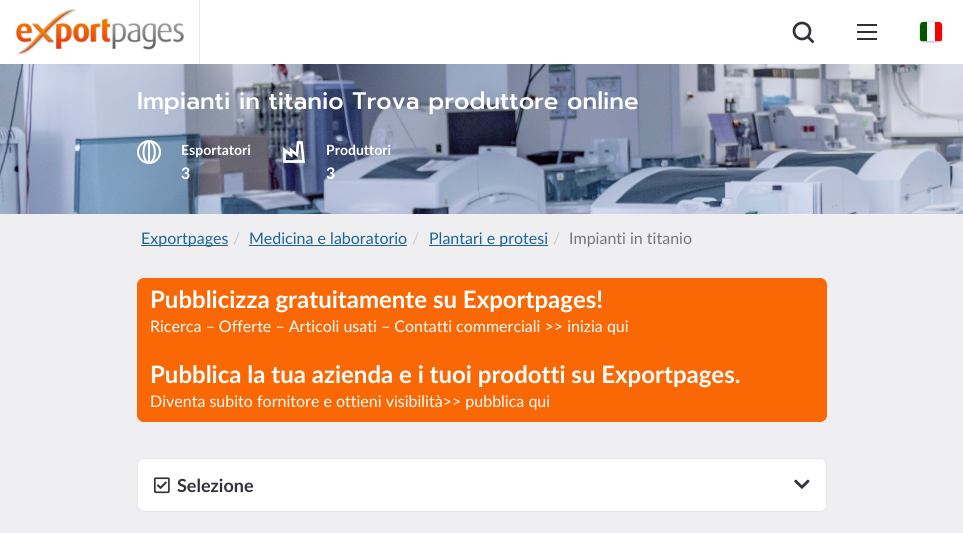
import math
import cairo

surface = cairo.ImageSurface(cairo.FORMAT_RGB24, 963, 533)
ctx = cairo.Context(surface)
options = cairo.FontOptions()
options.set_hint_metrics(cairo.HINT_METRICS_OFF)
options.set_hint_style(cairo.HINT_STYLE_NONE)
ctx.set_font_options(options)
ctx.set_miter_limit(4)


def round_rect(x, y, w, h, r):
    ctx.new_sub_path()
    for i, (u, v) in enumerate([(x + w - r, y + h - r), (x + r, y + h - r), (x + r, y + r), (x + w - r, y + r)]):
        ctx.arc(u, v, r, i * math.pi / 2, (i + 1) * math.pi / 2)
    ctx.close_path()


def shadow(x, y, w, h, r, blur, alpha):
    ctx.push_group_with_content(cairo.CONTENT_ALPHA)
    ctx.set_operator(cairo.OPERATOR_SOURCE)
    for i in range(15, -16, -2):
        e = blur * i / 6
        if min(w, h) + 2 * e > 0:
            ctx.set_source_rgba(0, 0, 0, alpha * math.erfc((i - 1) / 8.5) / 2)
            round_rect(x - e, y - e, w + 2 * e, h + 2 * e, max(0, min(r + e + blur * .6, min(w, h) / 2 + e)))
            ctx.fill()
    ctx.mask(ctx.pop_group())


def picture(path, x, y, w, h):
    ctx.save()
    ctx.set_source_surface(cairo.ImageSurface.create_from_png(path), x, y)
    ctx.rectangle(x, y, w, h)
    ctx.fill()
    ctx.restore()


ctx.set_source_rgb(1, 1, 1)
ctx.paint()
picture("img1.png", 16, 9, 168, 46)
ctx.set_source_rgb(0.922, 0.922, 0.937)
ctx.rectangle(199, 0, 1, 64)
ctx.fill()
ctx.arc(802, 31, 8, 0, 2 * math.pi)
ctx.set_source_rgb(0.192, 0.192, 0.231)
ctx.set_line_width(2.7)
ctx.stroke()
ctx.new_path()
ctx.move_to(807.5, 36.5)
ctx.line_to(813.5, 42.5)
ctx.stroke()
ctx.rectangle(857, 38, 20, 2)
ctx.fill()
ctx.rectangle(857, 31, 20, 2)
ctx.fill()
ctx.rectangle(857, 24, 20, 2)
ctx.fill()
ctx.set_source_rgb(0, 0, 0)
shadow(920, 22, 22, 20, 3, 1, 0.3)
ctx.save()
round_rect(920, 22, 22, 20, 3)
ctx.clip()
ctx.set_source_rgb(1, 1, 1)
ctx.new_path()
ctx.move_to(923, 22)
ctx.line_to(939, 22)
ctx.curve_to(940.5, 22, 942, 23.5, 942, 25)
ctx.line_to(942, 41)
ctx.line_to(920, 41)
ctx.line_to(920, 25)
ctx.curve_to(920, 23.5, 921.5, 22, 923, 22)
ctx.close_path()
ctx.fill()
ctx.set_source_rgb(0, 0.341, 0)
ctx.new_path()
ctx.move_to(923, 22)
ctx.line_to(927, 22)
ctx.line_to(927, 41)
ctx.line_to(920, 41)
ctx.line_to(920, 25)
ctx.curve_to(920, 23.5, 921.5, 22, 923, 22)
ctx.close_path()
ctx.fill()
ctx.set_source_rgb(0.988, 0, 0)
ctx.new_path()
ctx.move_to(935, 22)
ctx.line_to(939, 22)
ctx.curve_to(940.5, 22, 942, 23.5, 942, 25)
ctx.line_to(942, 41)
ctx.line_to(935, 41)
ctx.close_path()
ctx.fill()
ctx.restore()
picture("img2.png", 0, 64, 963, 150)
ctx.select_font_face("Prompt Medium")
ctx.set_font_size(24)
ctx.set_source_rgb(1, 1, 1)
ctx.move_to(137, 109)
ctx.show_text("Impianti in titanio Trova produttore online")
picture("img3.png", 137, 140, 24, 24)
ctx.select_font_face("Lato", cairo.FONT_SLANT_NORMAL, cairo.FONT_WEIGHT_BOLD)
ctx.set_font_size(14)
ctx.move_to(181, 155)
ctx.show_text("Esportatori")
ctx.set_font_size(16)
ctx.move_to(181, 179)
ctx.show_text("3")
ctx.new_path()
ctx.move_to(303.5, 161.5)
ctx.line_to(301.5, 142.5)
ctx.line_to(298, 142.5)
ctx.line_to(297, 155)
ctx.line_to(291, 150)
ctx.line_to(291, 155)
ctx.line_to(284.5, 150)
ctx.line_to(284.5, 161.5)
ctx.close_path()
ctx.stroke()
ctx.set_font_size(14)
ctx.move_to(326, 155)
ctx.show_text("Produttori")
ctx.set_font_size(16)
ctx.move_to(326, 179)
ctx.show_text("3")
ctx.set_source_rgb(0.937, 0.937, 0.945)
ctx.rectangle(0, 214, 963, 319)
ctx.fill()
ctx.set_source_rgb(0.106, 0.396, 0.584)
ctx.rectangle(141, 245, 87, 1)
ctx.fill()
ctx.select_font_face("Lato")
ctx.move_to(141, 244)
ctx.show_text("Exportpages")
ctx.set_source_rgb(0.8, 0.8, 0.8)
ctx.move_to(233, 244)
ctx.show_text("/")
ctx.set_source_rgb(0.106, 0.396, 0.584)
ctx.move_to(249, 244)
ctx.show_text("Medicina e laboratorio")
ctx.rectangle(249, 245, 158, 1)
ctx.fill()
ctx.set_source_rgb(0.8, 0.8, 0.8)
ctx.move_to(412, 244)
ctx.show_text("/")
ctx.set_source_rgb(0.106, 0.396, 0.584)
ctx.rectangle(429, 245, 119, 1)
ctx.fill()
ctx.move_to(429, 244)
ctx.show_text("Plantari e protesi")
ctx.set_source_rgb(0.8, 0.8, 0.8)
ctx.move_to(553, 244)
ctx.show_text("/")
ctx.set_source_rgb(0.467, 0.467, 0.467)
ctx.move_to(569, 244)
ctx.show_text("Impianti in titanio")
ctx.set_source_rgb(0.98, 0.404, 0.02)
round_rect(137.5, 278.5, 689, 143, 6.5)
ctx.fill_preserve()
ctx.set_line_width(1)
ctx.stroke()
ctx.select_font_face("Lato", cairo.FONT_SLANT_NORMAL, cairo.FONT_WEIGHT_BOLD)
ctx.set_font_size(24)
ctx.set_source_rgb(1, 1, 1)
ctx.move_to(150, 308)
ctx.show_text("Pubblicizza gratuitamente su Exportpages!")
ctx.select_font_face("Lato")
ctx.set_font_size(16)
ctx.move_to(150, 332)
ctx.show_text("Ricerca – Offerte – Articoli usati – Contatti commerciali >> inizia qui")
ctx.select_font_face("Lato", cairo.FONT_SLANT_NORMAL, cairo.FONT_WEIGHT_BOLD)
ctx.set_font_size(24)
ctx.move_to(150, 383)
ctx.show_text("Pubblica la tua azienda e i tuoi prodotti su Exportpages.")
ctx.select_font_face("Lato")
ctx.set_font_size(16)
ctx.move_to(150, 407)
ctx.show_text("Diventa subito fornitore e ottieni visibilità>> pubblica qui")
round_rect(137, 458, 690, 54, 7)
ctx.fill()
round_rect(137.5, 458.5, 689, 53, 6.5)
ctx.set_source_rgba(0.192, 0.192, 0.231, 0.12)
ctx.stroke()
picture("img4.png", 154, 477, 16, 17)
ctx.select_font_face("Lato", cairo.FONT_SLANT_NORMAL, cairo.FONT_WEIGHT_BOLD)
ctx.set_font_size(18)
ctx.set_source_rgb(0.192, 0.192, 0.231)
ctx.move_to(177, 492)
ctx.show_text("Selezione")
picture("img5.png", 794, 479, 16, 10)
surface.write_to_png("page.png")
